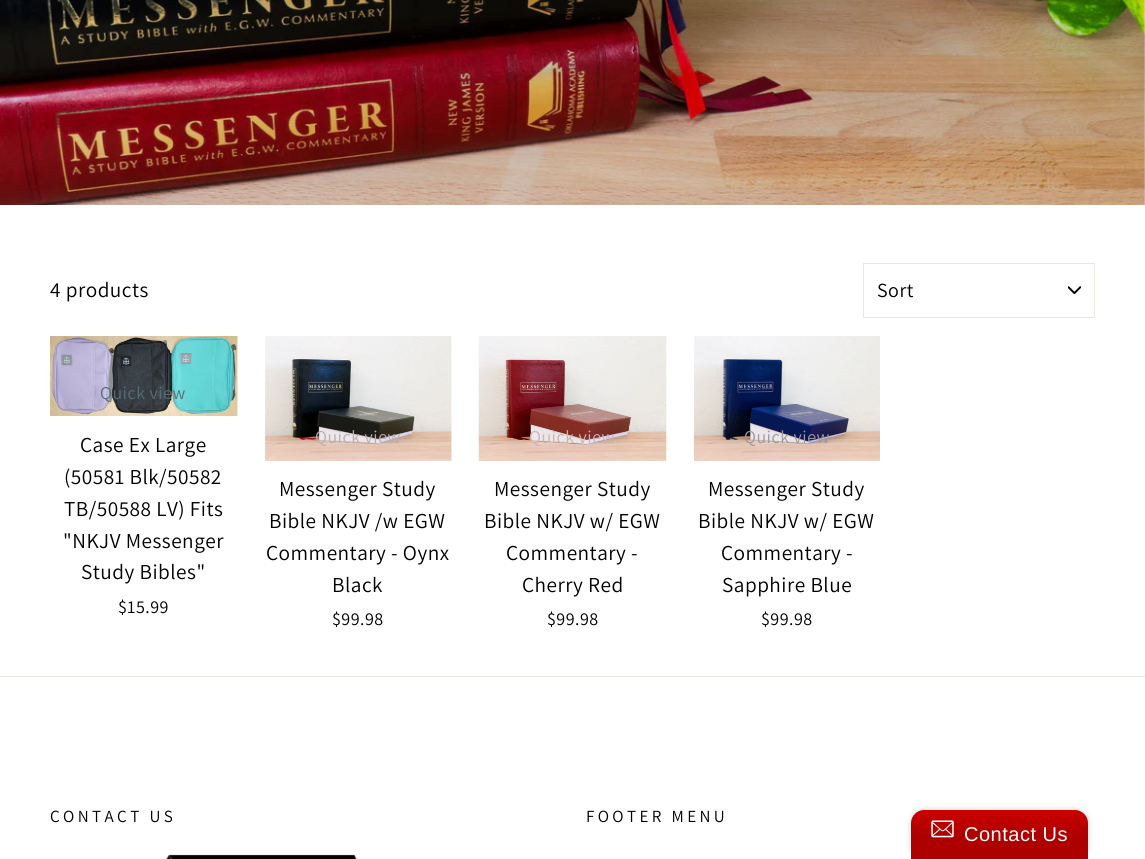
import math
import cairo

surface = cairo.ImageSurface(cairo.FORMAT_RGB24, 1145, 859)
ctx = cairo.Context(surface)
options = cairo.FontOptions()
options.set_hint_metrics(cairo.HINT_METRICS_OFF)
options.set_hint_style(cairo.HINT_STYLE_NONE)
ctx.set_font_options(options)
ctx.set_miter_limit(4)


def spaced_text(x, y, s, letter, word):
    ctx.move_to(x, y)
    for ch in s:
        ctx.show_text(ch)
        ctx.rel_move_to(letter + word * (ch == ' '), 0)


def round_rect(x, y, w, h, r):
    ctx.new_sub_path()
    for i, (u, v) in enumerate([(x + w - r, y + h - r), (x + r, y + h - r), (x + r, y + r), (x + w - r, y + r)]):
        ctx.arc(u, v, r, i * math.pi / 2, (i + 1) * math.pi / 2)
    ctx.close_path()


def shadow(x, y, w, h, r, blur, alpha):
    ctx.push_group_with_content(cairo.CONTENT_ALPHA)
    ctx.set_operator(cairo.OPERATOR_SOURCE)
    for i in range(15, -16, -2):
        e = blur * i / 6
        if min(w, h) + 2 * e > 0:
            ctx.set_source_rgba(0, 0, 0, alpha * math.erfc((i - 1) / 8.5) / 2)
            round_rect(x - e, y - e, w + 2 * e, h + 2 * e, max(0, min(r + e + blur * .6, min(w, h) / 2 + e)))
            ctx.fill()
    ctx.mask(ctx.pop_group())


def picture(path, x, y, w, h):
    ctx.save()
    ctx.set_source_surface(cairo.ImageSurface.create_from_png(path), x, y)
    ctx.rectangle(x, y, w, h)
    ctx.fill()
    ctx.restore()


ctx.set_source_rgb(1, 1, 1)
ctx.paint()
picture("img1.png", 0, 0, 1145, 205)
gradient = cairo.RadialGradient(0, 0, 0, 0, 0, 1)
gradient.set_matrix(cairo.Matrix(1 / 917, 0, 0, 1 / 270, -1 * 573 / 917, -1 * -57 / 270))
gradient.add_color_stop_rgba(0, 0, 0, 0, 0.2)
gradient.add_color_stop_rgba(0.6, 0, 0, 0, 0)
ctx.set_source(gradient)
ctx.rectangle(132, 0, 894, 88)
ctx.fill()
ctx.select_font_face("Assistant")
ctx.set_font_size(21.25)
ctx.set_source_rgb(0, 0, 0)
spaced_text(50, 297, "4 products", 0.5, 0)
picture("img2.png", 1068, 286, 13, 8)
ctx.rectangle(863.5, 263.5, 231, 54)
ctx.set_source_rgb(0.91, 0.91, 0.882)
ctx.set_line_width(1)
ctx.stroke()
ctx.set_font_size(20)
ctx.set_source_rgb(0, 0, 0)
spaced_text(877, 297, "Sort", 0.5, 0)
picture("img3.png", 50, 336, 188, 80)
ctx.set_font_size(18)
ctx.set_source_rgb(0.349, 0.427, 0.455)
spaced_text(100, 399, "Quick view", 0.5, 0)
ctx.set_font_size(21.25)
ctx.set_source_rgb(0, 0, 0)
spaced_text(80, 452, "Case Ex Large", 0.5, 0)
spaced_text(64, 484, "(50581 Blk/50582", 0.5, 0)
spaced_text(64, 516, "TB/50588 LV) Fits", 0.5, 0)
spaced_text(63, 548, "\"NKJV Messenger", 0.5, 0)
spaced_text(81, 579, "Study Bibles\"", 0.5, 0)
ctx.set_font_size(18)
spaced_text(118, 613, "$15.99", 0.5, 0)
picture("img4.png", 265, 336, 187, 125)
ctx.set_source_rgb(0.729, 0.682, 0.678)
spaced_text(315, 443, "Quick view", 0.5, 0)
ctx.set_font_size(21.25)
ctx.set_source_rgb(0, 0, 0)
spaced_text(279, 496, "Messenger Study", 0.5, 0)
spaced_text(269, 528, "Bible NKJV /w EGW", 0.5, 0)
spaced_text(266, 560, "Commentary - Oynx", 0.5, 0)
spaced_text(332, 592, "Black", 0.5, 0)
ctx.set_font_size(18)
spaced_text(332, 625, "$99.98", 0.5, 0)
picture("img5.png", 478, 336, 189, 125)
ctx.set_source_rgb(0.8, 0.698, 0.69)
spaced_text(529, 443, "Quick view", 0.5, 0)
ctx.set_font_size(21.25)
ctx.set_source_rgb(0, 0, 0)
spaced_text(494, 496, "Messenger Study", 0.5, 0)
spaced_text(484, 528, "Bible NKJV w/ EGW", 0.5, 0)
spaced_text(506, 560, "Commentary -", 0.5, 0)
spaced_text(522, 592, "Cherry Red", 0.5, 0)
ctx.set_font_size(18)
spaced_text(547, 625, "$99.98", 0.5, 0)
picture("img6.png", 694, 336, 186, 125)
ctx.set_source_rgb(0.624, 0.588, 0.635)
spaced_text(744, 443, "Quick view", 0.5, 0)
ctx.set_font_size(21.25)
ctx.set_source_rgb(0, 0, 0)
spaced_text(708, 496, "Messenger Study", 0.5, 0)
spaced_text(698, 528, "Bible NKJV w/ EGW", 0.5, 0)
spaced_text(721, 560, "Commentary -", 0.5, 0)
spaced_text(722, 592, "Sapphire Blue", 0.5, 0)
ctx.set_font_size(18)
spaced_text(761, 625, "$99.98", 0.5, 0)
ctx.set_source_rgb(0.91, 0.91, 0.882)
ctx.rectangle(0, 676, 1145, 1)
ctx.fill()
ctx.set_font_size(17)
ctx.set_source_rgb(0, 0, 0)
spaced_text(50, 822, "CONTACT US", 3.4, 0)
picture("img7.png", 165, 854, 193, 5)
spaced_text(586, 822, "FOOTER MENU", 3.4, 0)
ctx.set_source_rgb(0, 0, 0)
shadow(911, 810, 177, 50, 13, 3, 0.2)
gradient = cairo.LinearGradient(999, 810, 999, 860)
gradient.add_color_stop_rgba(0, 0.8, 0, 0, 1)
gradient.add_color_stop_rgba(0.5, 0.682, 0, 0, 1)
ctx.set_source(gradient)
ctx.new_path()
ctx.move_to(924, 810)
ctx.line_to(1075, 810)
ctx.curve_to(1082, 810, 1088, 816, 1088, 823)
ctx.line_to(1088, 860)
ctx.line_to(911, 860)
ctx.line_to(911, 823)
ctx.curve_to(911, 816, 917, 810, 924, 810)
ctx.close_path()
ctx.fill()
picture("img8.png", 931, 820, 23, 18)
ctx.select_font_face("Liberation Sans")
ctx.set_font_size(20)
ctx.set_source_rgb(1, 1, 1)
spaced_text(964, 841, "Contact Us", 0.5, 0)
surface.write_to_png("page.png")
